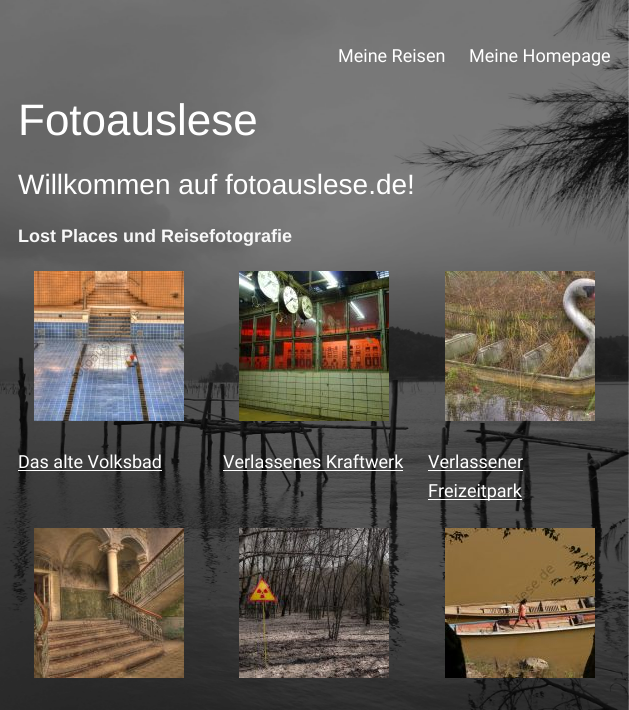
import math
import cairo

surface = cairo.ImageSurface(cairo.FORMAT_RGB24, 629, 710)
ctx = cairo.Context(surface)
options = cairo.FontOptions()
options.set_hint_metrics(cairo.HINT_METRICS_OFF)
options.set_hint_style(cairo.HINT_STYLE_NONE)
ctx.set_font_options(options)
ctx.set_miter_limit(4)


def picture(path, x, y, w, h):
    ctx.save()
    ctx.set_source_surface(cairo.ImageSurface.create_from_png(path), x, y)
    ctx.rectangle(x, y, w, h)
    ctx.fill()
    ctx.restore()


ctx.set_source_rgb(1, 1, 1)
ctx.paint()
picture("img1.png", 0, 0, 629, 710)
ctx.select_font_face("Roboto")
ctx.set_font_size(18)
ctx.set_source_rgb(1, 1, 1)
ctx.move_to(338, 62)
ctx.show_text("Meine Reisen")
ctx.move_to(469, 62)
ctx.show_text("Meine Homepage")
ctx.select_font_face("Liberation Sans")
ctx.set_font_size(44)
ctx.move_to(18, 135)
ctx.show_text("Fotoauslese")
ctx.set_font_size(28)
ctx.move_to(18, 194)
ctx.show_text("Willkommen auf fotoauslese.de!")
ctx.select_font_face("Liberation Sans", cairo.FONT_SLANT_NORMAL, cairo.FONT_WEIGHT_BOLD)
ctx.set_font_size(18)
ctx.set_source_rgb(0.965, 0.965, 0.965)
ctx.move_to(18, 242)
ctx.show_text("Lost Places und Reisefotografie")
picture("img2.png", 34, 271, 150, 150)
ctx.select_font_face("Roboto")
ctx.set_source_rgb(1, 1, 1)
ctx.move_to(18, 468)
ctx.show_text("Das alte Volksbad")
ctx.rectangle(18, 470, 144, 1)
ctx.fill()
picture("img3.png", 239, 271, 150, 150)
ctx.move_to(223, 468)
ctx.show_text("Verlassenes Kraftwerk")
ctx.rectangle(223, 470, 180, 1)
ctx.fill()
picture("img4.png", 445, 271, 150, 150)
ctx.move_to(428, 468)
ctx.show_text("Verlassener")
ctx.rectangle(428, 470, 95, 1)
ctx.fill()
ctx.rectangle(428, 499, 94, 1)
ctx.fill()
ctx.move_to(428, 497)
ctx.show_text("Freizeitpark")
picture("img5.png", 34, 528, 150, 150)
picture("img6.png", 239, 528, 150, 150)
picture("img7.png", 445, 528, 150, 150)
surface.write_to_png("page.png")
